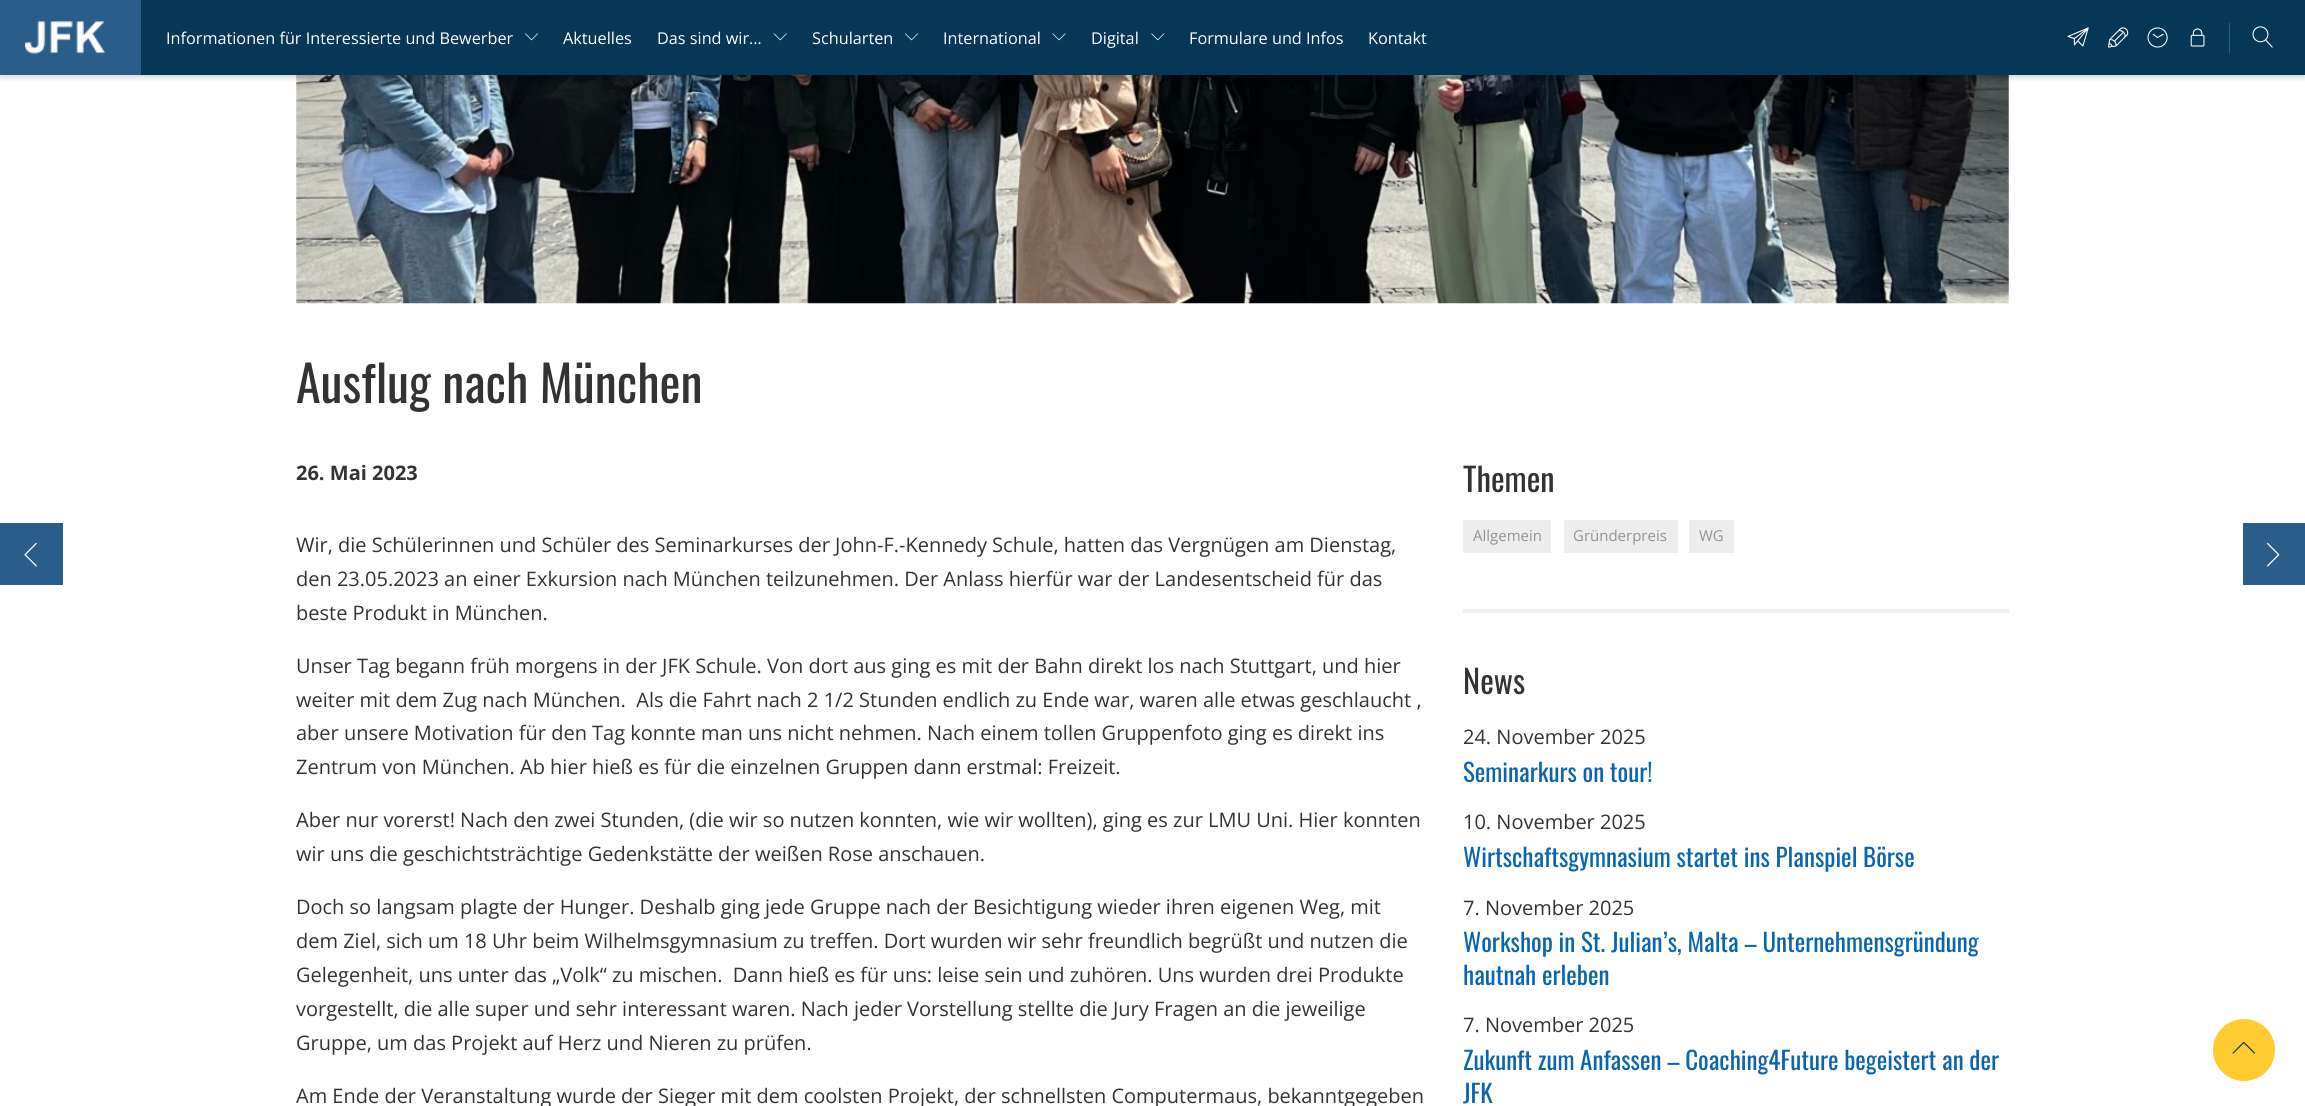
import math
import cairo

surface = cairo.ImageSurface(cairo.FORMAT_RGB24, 2305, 1106)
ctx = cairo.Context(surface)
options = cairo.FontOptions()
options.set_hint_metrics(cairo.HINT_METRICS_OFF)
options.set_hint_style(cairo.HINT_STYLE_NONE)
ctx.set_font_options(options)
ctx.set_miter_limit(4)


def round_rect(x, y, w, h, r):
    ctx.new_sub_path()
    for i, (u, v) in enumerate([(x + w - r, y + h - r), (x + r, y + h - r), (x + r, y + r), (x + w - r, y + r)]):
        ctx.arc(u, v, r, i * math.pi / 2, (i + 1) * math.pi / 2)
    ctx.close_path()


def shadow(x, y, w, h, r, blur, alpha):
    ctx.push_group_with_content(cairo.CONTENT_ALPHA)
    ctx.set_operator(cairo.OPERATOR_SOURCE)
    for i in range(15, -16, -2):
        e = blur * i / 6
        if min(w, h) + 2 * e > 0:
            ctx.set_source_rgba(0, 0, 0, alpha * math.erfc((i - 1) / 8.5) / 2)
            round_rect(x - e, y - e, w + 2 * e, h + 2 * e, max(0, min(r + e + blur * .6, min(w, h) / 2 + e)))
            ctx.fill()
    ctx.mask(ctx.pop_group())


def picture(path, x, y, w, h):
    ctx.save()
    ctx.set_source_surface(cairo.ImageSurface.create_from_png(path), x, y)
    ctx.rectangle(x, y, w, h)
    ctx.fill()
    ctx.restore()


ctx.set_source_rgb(1, 1, 1)
ctx.paint()
picture("img11.png", 296, 75, 1713, 229)
ctx.set_source_rgb(0, 0, 0)
shadow(0, 3, 2305, 75, 0, 2.5, 0.15)
ctx.set_source_rgb(0.027, 0.216, 0.341)
ctx.rectangle(141, 0, 2164, 75)
ctx.fill()
ctx.set_source_rgb(0.165, 0.365, 0.537)
ctx.rectangle(0, 0, 141, 75)
ctx.fill()
picture("img1.png", 25, 21, 81, 33)
ctx.select_font_face("Open Sans")
ctx.set_font_size(16.25)
ctx.set_source_rgb(1, 1, 1)
ctx.move_to(166, 44)
ctx.show_text("Informationen für Interessierte und Bewerber")
picture("img2.png", 525, 33, 13, 8)
ctx.move_to(563, 44)
ctx.show_text("Aktuelles")
ctx.move_to(657, 44)
ctx.show_text("Das sind wir…")
picture("img3.png", 773, 33, 14, 8)
ctx.move_to(812, 44)
ctx.show_text("Schularten")
picture("img2.png", 905, 33, 13, 8)
ctx.move_to(943, 44)
ctx.show_text("International")
picture("img4.png", 1052, 33, 14, 8)
ctx.move_to(1091, 44)
ctx.show_text("Digital")
picture("img5.png", 1151, 33, 14, 8)
ctx.move_to(1189, 44)
ctx.show_text("Formulare und Infos")
ctx.move_to(1368, 44)
ctx.show_text("Kontakt")
picture("img6.png", 2067, 27, 22, 20)
picture("img7.png", 2108, 27, 21, 21)
picture("img8.png", 2147, 27, 21, 21)
picture("img9.png", 2190, 28, 15, 19)
ctx.set_source_rgb(0.165, 0.365, 0.537)
ctx.rectangle(2229, 23, 1, 30)
ctx.fill()
picture("img10.png", 2252, 26, 21, 22)
ctx.select_font_face("Oswald")
ctx.set_font_size(50)
ctx.set_source_rgb(0.2, 0.2, 0.2)
ctx.move_to(296, 403)
ctx.show_text("Ausflug nach München")
ctx.select_font_face("Open Sans", cairo.FONT_SLANT_NORMAL, cairo.FONT_WEIGHT_BOLD)
ctx.set_font_size(20)
ctx.move_to(296, 480)
ctx.show_text("26. Mai 2023")
ctx.select_font_face("Open Sans")
ctx.move_to(296, 552)
ctx.show_text("Wir, die Schülerinnen und Schüler des Seminarkurses der John-F.-Kennedy Schule, hatten das Vergnügen am Dienstag,")
ctx.move_to(296, 586)
ctx.show_text("den 23.05.2023 an einer Exkursion nach München teilzunehmen. Der Anlass hierfür war der Landesentscheid für das")
ctx.move_to(296, 620)
ctx.show_text("beste Produkt in München.")
ctx.move_to(296, 673)
ctx.show_text("Unser Tag begann früh morgens in der JFK Schule. Von dort aus ging es mit der Bahn direkt los nach Stuttgart, und hier")
ctx.move_to(296, 707)
ctx.show_text("weiter mit dem Zug nach München.  Als die Fahrt nach 2 1/2 Stunden endlich zu Ende war, waren alle etwas geschlaucht ,")
ctx.move_to(296, 740)
ctx.show_text("aber unsere Motivation für den Tag konnte man uns nicht nehmen. Nach einem tollen Gruppenfoto ging es direkt ins")
ctx.move_to(296, 774)
ctx.show_text("Zentrum von München. Ab hier hieß es für die einzelnen Gruppen dann erstmal: Freizeit.")
ctx.move_to(296, 827)
ctx.show_text("Aber nur vorerst! Nach den zwei Stunden, (die wir so nutzen konnten, wie wir wollten), ging es zur LMU Uni. Hier konnten")
ctx.move_to(296, 861)
ctx.show_text("wir uns die geschichtsträchtige Gedenkstätte der weißen Rose anschauen.")
ctx.move_to(296, 914)
ctx.show_text("Doch so langsam plagte der Hunger. Deshalb ging jede Gruppe nach der Besichtigung wieder ihren eigenen Weg, mit")
ctx.move_to(296, 948)
ctx.show_text("dem Ziel, sich um 18 Uhr beim Wilhelmsgymnasium zu treffen. Dort wurden wir sehr freundlich begrüßt und nutzen die")
ctx.move_to(296, 982)
ctx.show_text("Gelegenheit, uns unter das „Volk“ zu mischen.  Dann hieß es für uns: leise sein und zuhören. Uns wurden drei Produkte")
ctx.move_to(296, 1016)
ctx.show_text("vorgestellt, die alle super und sehr interessant waren. Nach jeder Vorstellung stellte die Jury Fragen an die jeweilige")
ctx.move_to(296, 1050)
ctx.show_text("Gruppe, um das Projekt auf Herz und Nieren zu prüfen.")
ctx.move_to(296, 1103)
ctx.show_text("Am Ende der Veranstaltung wurde der Sieger mit dem coolsten Projekt, der schnellsten Computermaus, bekanntgegeben")
ctx.select_font_face("Oswald")
ctx.set_font_size(32.5)
ctx.move_to(1463, 492)
ctx.show_text("Themen")
ctx.set_source_rgb(0.929, 0.929, 0.929)
ctx.rectangle(1463, 520, 88, 33)
ctx.fill()
ctx.select_font_face("Open Sans")
ctx.set_font_size(15)
ctx.set_source_rgb(0.576, 0.576, 0.576)
ctx.move_to(1473, 541)
ctx.show_text("Allgemein")
ctx.set_source_rgb(0.929, 0.929, 0.929)
ctx.rectangle(1564, 520, 114, 33)
ctx.fill()
ctx.set_source_rgb(0.576, 0.576, 0.576)
ctx.move_to(1573, 541)
ctx.show_text("Gründerpreis")
ctx.set_source_rgb(0.929, 0.929, 0.929)
ctx.rectangle(1689, 520, 45, 33)
ctx.fill()
ctx.set_source_rgb(0.576, 0.576, 0.576)
ctx.move_to(1699, 541)
ctx.show_text("WG")
ctx.set_source_rgb(0.929, 0.929, 0.929)
ctx.rectangle(1463, 609, 546, 4)
ctx.fill()
ctx.select_font_face("Oswald")
ctx.set_font_size(32.5)
ctx.set_source_rgb(0.2, 0.2, 0.2)
ctx.move_to(1463, 694)
ctx.show_text("News")
ctx.select_font_face("Open Sans")
ctx.set_font_size(20)
ctx.move_to(1463, 744)
ctx.show_text("24. November 2025")
ctx.select_font_face("Oswald")
ctx.set_font_size(25)
ctx.set_source_rgb(0.039, 0.396, 0.686)
ctx.move_to(1463, 782)
ctx.show_text("Seminarkurs on tour!")
ctx.select_font_face("Open Sans")
ctx.set_font_size(20)
ctx.set_source_rgb(0.2, 0.2, 0.2)
ctx.move_to(1463, 829)
ctx.show_text("10. November 2025")
ctx.select_font_face("Oswald")
ctx.set_font_size(25)
ctx.set_source_rgb(0.039, 0.396, 0.686)
ctx.move_to(1463, 867)
ctx.show_text("Wirtschaftsgymnasium startet ins Planspiel Börse")
ctx.select_font_face("Open Sans")
ctx.set_font_size(20)
ctx.set_source_rgb(0.2, 0.2, 0.2)
ctx.move_to(1463, 915)
ctx.show_text("7. November 2025")
ctx.select_font_face("Oswald")
ctx.set_font_size(25)
ctx.set_source_rgb(0.039, 0.396, 0.686)
ctx.move_to(1463, 952)
ctx.show_text("Workshop in St. Julian’s, Malta – Unternehmensgründung")
ctx.move_to(1463, 985)
ctx.show_text("hautnah erleben")
ctx.select_font_face("Open Sans")
ctx.set_font_size(20)
ctx.set_source_rgb(0.2, 0.2, 0.2)
ctx.move_to(1463, 1032)
ctx.show_text("7. November 2025")
ctx.select_font_face("Oswald")
ctx.set_font_size(25)
ctx.set_source_rgb(0.039, 0.396, 0.686)
ctx.move_to(1463, 1070)
ctx.show_text("Zukunft zum Anfassen – Coaching4Future begeistert an der")
ctx.move_to(1463, 1103)
ctx.show_text("JFK")
ctx.set_source_rgb(0.165, 0.365, 0.537)
ctx.rectangle(0, 523, 63, 62)
ctx.fill()
picture("img12.png", 24, 542, 13, 25)
ctx.rectangle(2243, 523, 62, 62)
ctx.fill()
picture("img13.png", 2266, 542, 14, 25)
ctx.set_source_rgb(1, 0.796, 0.192)
ctx.arc(2244, 1050, 31, 0, 2 * math.pi)
ctx.fill()
picture("img14.png", 2232, 1041, 23, 13)
surface.write_to_png("page.png")
